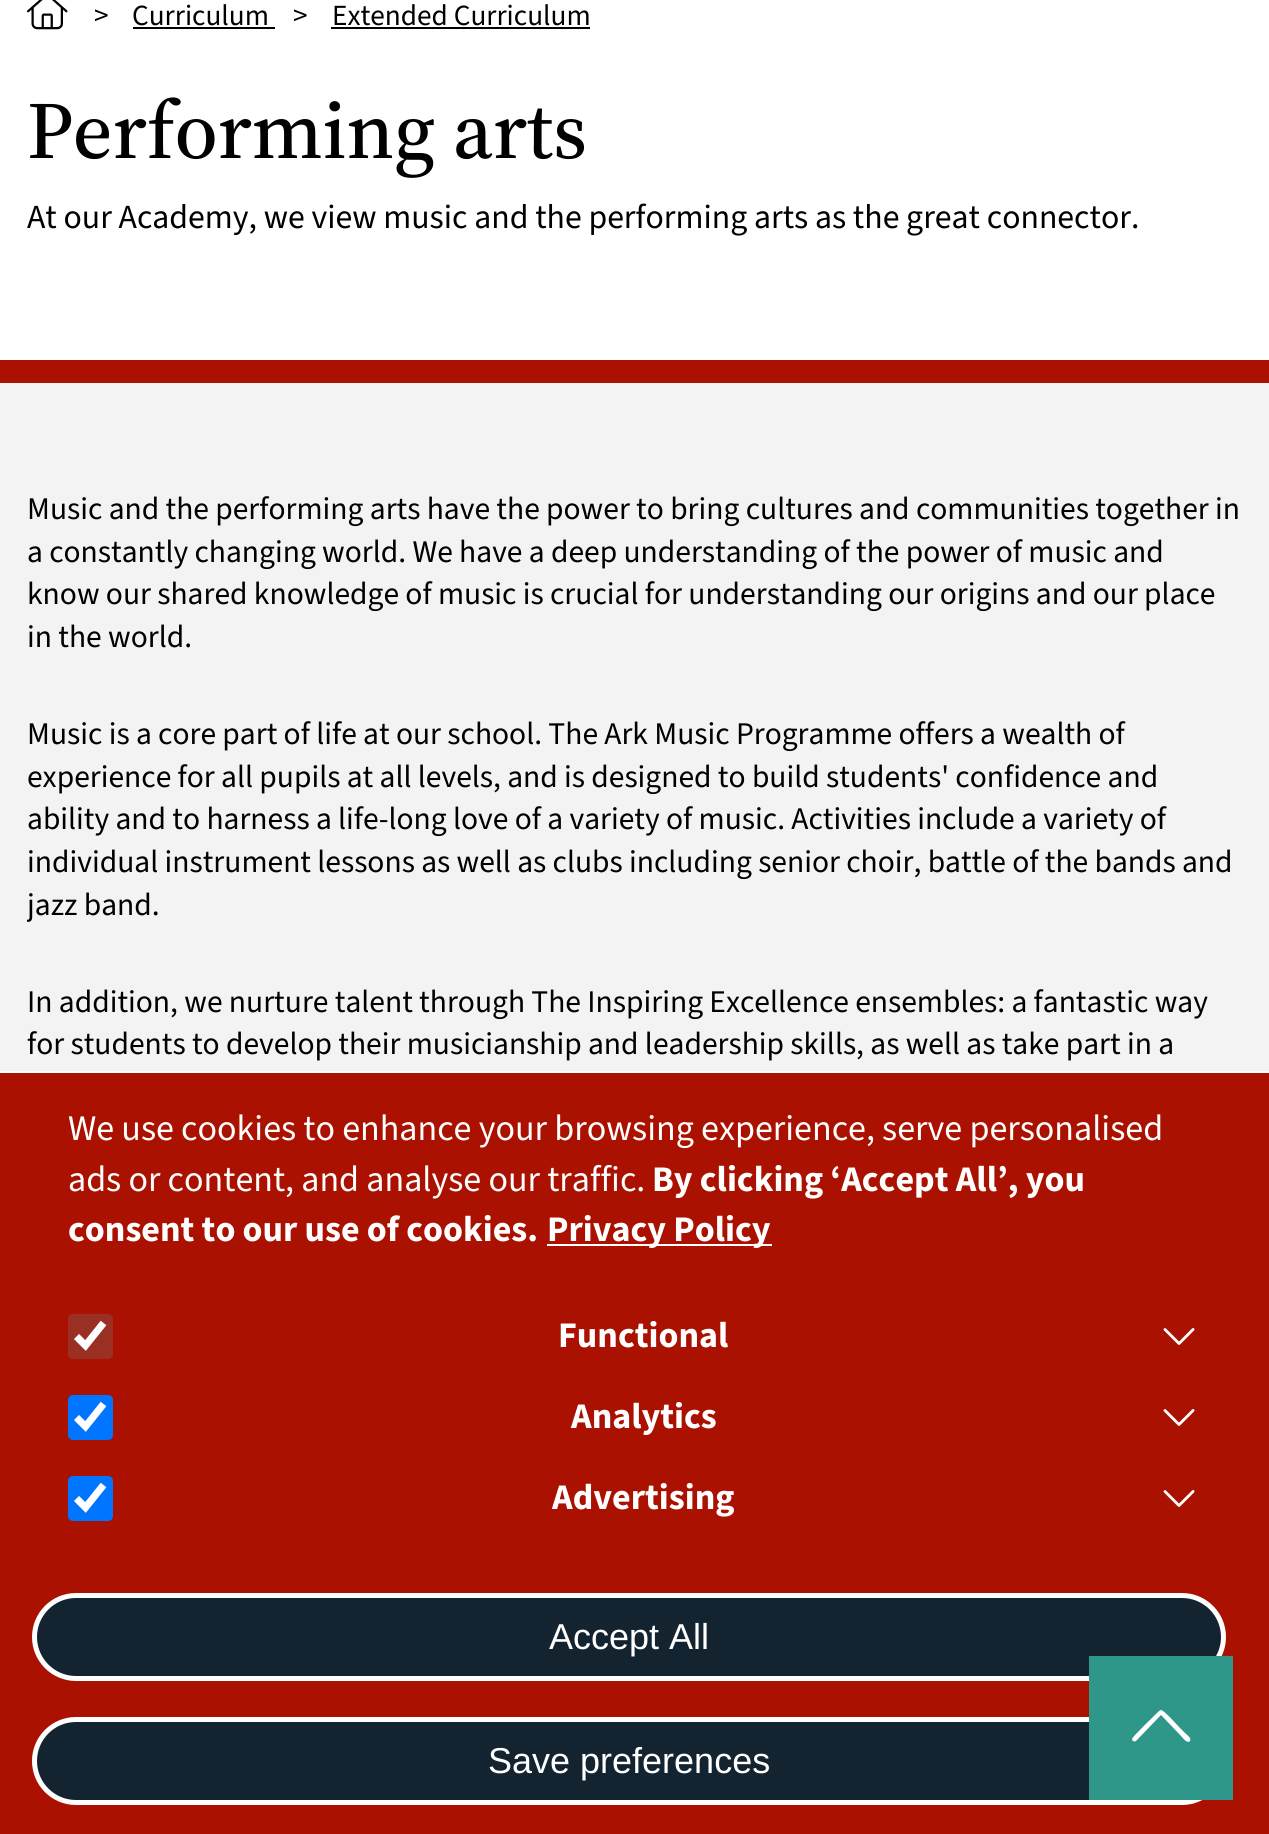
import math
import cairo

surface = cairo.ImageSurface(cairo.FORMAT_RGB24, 1269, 1834)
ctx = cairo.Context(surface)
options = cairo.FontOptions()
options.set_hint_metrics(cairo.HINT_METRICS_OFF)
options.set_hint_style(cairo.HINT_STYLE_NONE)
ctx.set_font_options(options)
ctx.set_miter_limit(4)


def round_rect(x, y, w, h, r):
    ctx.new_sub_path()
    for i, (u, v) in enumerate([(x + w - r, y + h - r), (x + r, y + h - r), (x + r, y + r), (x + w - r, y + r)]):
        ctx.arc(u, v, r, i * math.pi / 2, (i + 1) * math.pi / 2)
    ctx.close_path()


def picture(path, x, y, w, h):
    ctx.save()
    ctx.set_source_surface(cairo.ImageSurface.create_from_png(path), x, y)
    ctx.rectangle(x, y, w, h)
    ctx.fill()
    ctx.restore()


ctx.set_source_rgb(1, 1, 1)
ctx.paint()
ctx.set_source_rgb(0.667, 0.067, 0)
ctx.rectangle(0, 360, 1269, 23)
ctx.fill()
picture("img1.png", 27, 0, 41, 30)
ctx.select_font_face("Source Sans 3")
ctx.set_font_size(29.25)
ctx.set_source_rgb(0, 0, 0)
ctx.move_to(94, 25)
ctx.show_text(">")
ctx.move_to(132, 25)
ctx.show_text("Curriculum")
ctx.rectangle(133, 27, 142, 2)
ctx.fill()
ctx.move_to(293, 25)
ctx.show_text(">")
ctx.move_to(332, 25)
ctx.show_text("Extended Curriculum")
ctx.rectangle(331, 27, 259, 2)
ctx.fill()
ctx.select_font_face("Source Serif 4 Medium")
ctx.set_font_size(81)
ctx.move_to(27, 158)
ctx.show_text("Performing arts")
ctx.select_font_face("Source Sans 3")
ctx.set_font_size(33.75)
ctx.move_to(27, 228)
ctx.show_text("At our Academy, we view music and the performing arts as the great connector.")
ctx.set_source_rgb(0.953, 0.953, 0.953)
ctx.rectangle(0, 383, 1269, 688)
ctx.fill()
ctx.set_font_size(31.5)
ctx.set_source_rgb(0, 0, 0)
ctx.move_to(27, 519)
ctx.show_text("Music and the performing arts have the power to bring cultures and communities together in")
ctx.move_to(27, 562)
ctx.show_text("a constantly changing world. We have a deep understanding of the power of music and")
ctx.move_to(27, 604)
ctx.show_text("know our shared knowledge of music is crucial for understanding our origins and our place")
ctx.move_to(27, 647)
ctx.show_text("in the world.")
ctx.move_to(27, 744)
ctx.show_text("Music is a core part of life at our school. The Ark Music Programme offers a wealth of")
ctx.move_to(27, 787)
ctx.show_text("experience for all pupils at all levels, and is designed to build students' confidence and")
ctx.move_to(27, 829)
ctx.show_text("ability and to harness a life-long love of a variety of music. Activities include a variety of")
ctx.move_to(27, 872)
ctx.show_text("individual instrument lessons as well as clubs including senior choir, battle of the bands and")
ctx.save()
ctx.rectangle(27, 491, 1215, 717)
ctx.clip()
ctx.move_to(27, 915)
ctx.show_text("jazz band.")
ctx.restore()
ctx.move_to(27, 1012)
ctx.show_text("In addition, we nurture talent through The Inspiring Excellence ensembles: a fantastic way")
ctx.move_to(27, 1054)
ctx.show_text("for students to develop their musicianship and leadership skills, as well as take part in a")
ctx.set_source_rgb(0.667, 0.067, 0)
ctx.rectangle(0, 1073, 1269, 761)
ctx.fill()
ctx.set_source_rgb(0.075, 0.141, 0.188)
round_rect(34.5, 1595.5, 1189, 83, 41.5)
ctx.fill_preserve()
ctx.set_source_rgb(1, 1, 1)
ctx.set_line_width(5)
ctx.stroke()
ctx.set_source_rgb(0.075, 0.141, 0.188)
round_rect(34.5, 1719.5, 1189, 83, 41.5)
ctx.fill_preserve()
ctx.set_source_rgb(1, 1, 1)
ctx.stroke()
ctx.set_source_rgb(0.18, 0.592, 0.541)
ctx.rectangle(1089, 1656, 144, 144)
ctx.fill()
ctx.set_source_rgb(1, 1, 1)
ctx.new_path()
ctx.move_to(1159, 1711)
ctx.line_to(1161, 1710)
ctx.curve_to(1164, 1710, 1178, 1726, 1181, 1729)
ctx.line_to(1185, 1733)
ctx.curve_to(1186, 1734, 1192, 1738, 1190, 1741)
ctx.curve_to(1187, 1744, 1183, 1738, 1182, 1737)
ctx.line_to(1161, 1715)
ctx.line_to(1136, 1741)
ctx.curve_to(1134, 1742, 1132, 1741, 1132, 1739)
ctx.curve_to(1132, 1737, 1156, 1714, 1159, 1711)
ctx.close_path()
ctx.fill()
ctx.set_font_size(36)
ctx.move_to(68, 1140)
ctx.show_text("We use cookies to enhance your browsing experience, serve personalised")
ctx.move_to(68, 1191)
ctx.show_text("ads or content, and analyse our traffic.")
ctx.select_font_face("Source Sans 3", cairo.FONT_SLANT_NORMAL, cairo.FONT_WEIGHT_BOLD)
ctx.move_to(652, 1191)
ctx.show_text("By clicking ‘Accept All’, you")
ctx.move_to(68, 1241)
ctx.show_text("consent to our use of cookies.")
ctx.rectangle(547, 1244, 225, 2)
ctx.fill()
ctx.move_to(547, 1241)
ctx.show_text("Privacy Policy")
ctx.set_source_rgb(0.604, 0.184, 0.137)
round_rect(68, 1314, 45, 45, 5)
ctx.fill()
ctx.new_path()
ctx.move_to(76.5, 1336.5)
ctx.line_to(85.5, 1345.5)
ctx.line_to(103.5, 1323)
ctx.set_source_rgb(1, 1, 1)
ctx.set_line_width(7.2)
ctx.stroke()
ctx.move_to(558, 1347)
ctx.show_text("Functional")
picture("img2.png", 1163, 1328, 32, 17)
ctx.set_source_rgb(0, 0.459, 1)
round_rect(68, 1395, 45, 45, 5)
ctx.fill()
ctx.new_path()
ctx.move_to(76.5, 1417.5)
ctx.line_to(85.5, 1426.5)
ctx.line_to(103.5, 1404)
ctx.set_source_rgb(1, 1, 1)
ctx.stroke()
ctx.move_to(571, 1428)
ctx.show_text("Analytics")
picture("img2.png", 1163, 1409, 32, 17)
ctx.set_source_rgb(0, 0.459, 1)
round_rect(68, 1476, 45, 45, 5)
ctx.fill()
ctx.new_path()
ctx.move_to(76.5, 1498.5)
ctx.line_to(85.5, 1507.5)
ctx.line_to(103.5, 1485)
ctx.set_source_rgb(1, 1, 1)
ctx.stroke()
ctx.move_to(552, 1509)
ctx.show_text("Advertising")
picture("img2.png", 1163, 1490, 32, 17)
ctx.select_font_face("Liberation Sans")
ctx.move_to(549, 1649)
ctx.show_text("Accept All")
ctx.move_to(488, 1773)
ctx.show_text("Save preferences")
surface.write_to_png("page.png")
